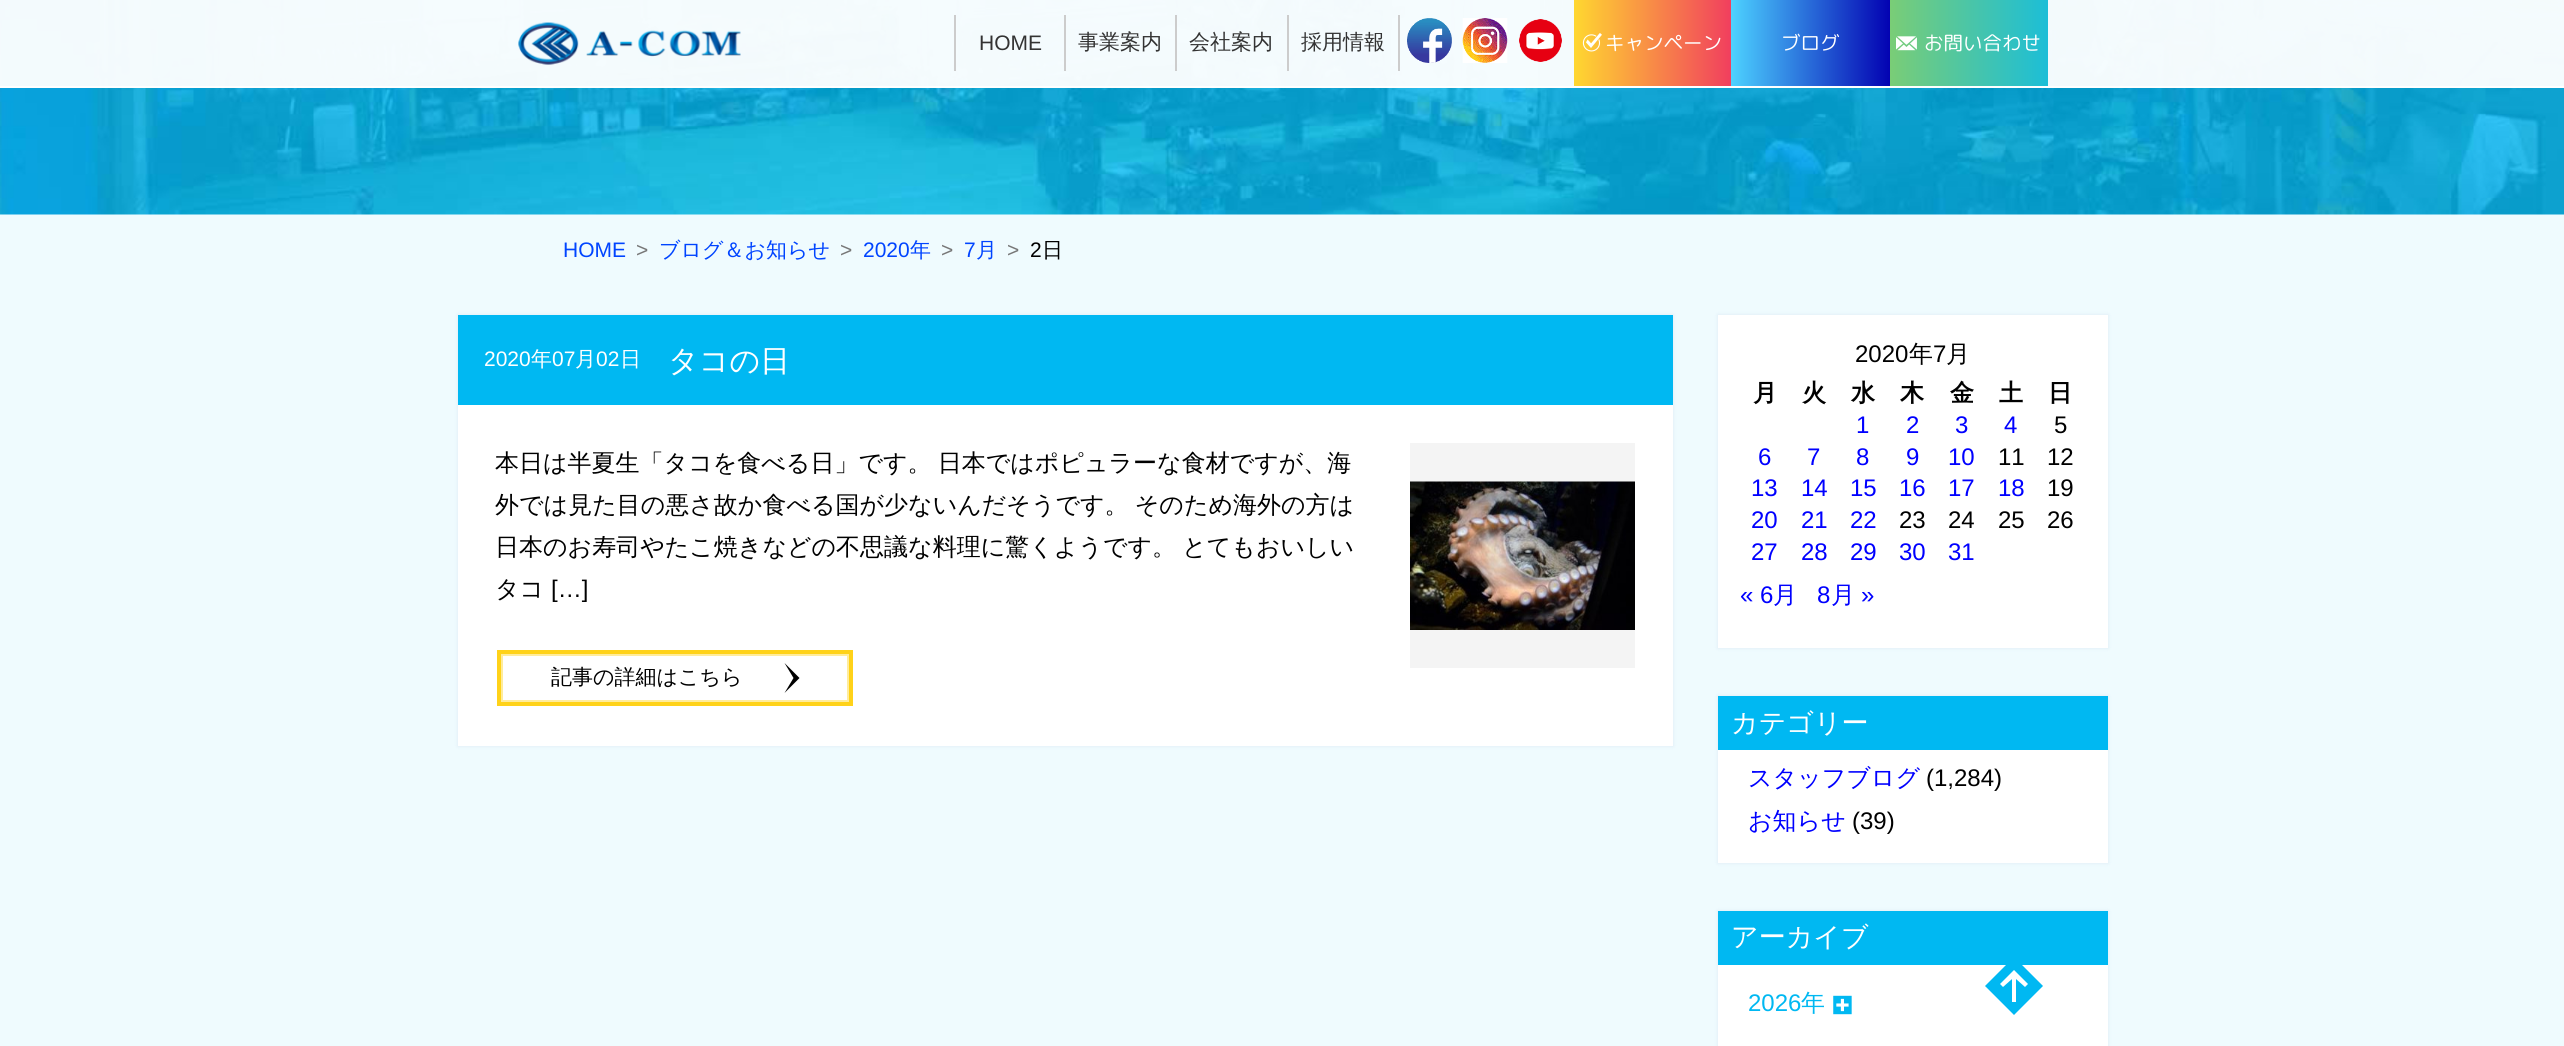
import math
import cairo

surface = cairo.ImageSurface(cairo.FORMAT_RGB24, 2564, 1046)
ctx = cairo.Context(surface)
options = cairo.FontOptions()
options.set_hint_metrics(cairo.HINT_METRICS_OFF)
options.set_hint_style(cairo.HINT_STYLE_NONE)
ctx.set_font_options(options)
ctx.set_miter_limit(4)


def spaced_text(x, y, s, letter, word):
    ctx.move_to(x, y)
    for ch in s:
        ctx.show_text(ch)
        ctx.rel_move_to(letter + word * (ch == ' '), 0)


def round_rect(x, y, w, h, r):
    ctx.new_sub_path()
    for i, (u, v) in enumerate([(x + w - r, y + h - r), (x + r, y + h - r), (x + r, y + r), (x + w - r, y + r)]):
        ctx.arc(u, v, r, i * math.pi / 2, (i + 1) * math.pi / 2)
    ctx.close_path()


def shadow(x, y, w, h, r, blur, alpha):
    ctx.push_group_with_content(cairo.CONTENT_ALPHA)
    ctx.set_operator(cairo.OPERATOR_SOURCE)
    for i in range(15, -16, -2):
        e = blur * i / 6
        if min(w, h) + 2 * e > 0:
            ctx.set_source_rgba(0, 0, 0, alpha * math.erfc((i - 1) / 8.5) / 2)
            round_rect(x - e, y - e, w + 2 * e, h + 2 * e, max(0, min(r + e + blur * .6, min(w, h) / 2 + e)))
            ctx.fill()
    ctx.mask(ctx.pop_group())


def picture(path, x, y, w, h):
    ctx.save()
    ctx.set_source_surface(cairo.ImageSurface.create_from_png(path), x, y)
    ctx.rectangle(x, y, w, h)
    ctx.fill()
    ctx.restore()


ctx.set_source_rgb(0.937, 0.984, 0.996)
ctx.paint()
picture("img7.png", 0, 0, 2564, 215)
ctx.set_source_rgba(1, 1, 1, 0.95)
ctx.rectangle(0, 0, 2564, 86)
ctx.fill()
ctx.set_source_rgb(1, 1, 1)
ctx.rectangle(0, 86, 2564, 2)
ctx.fill()
picture("img1.png", 518, 22, 223, 43)
ctx.set_source_rgb(0.8, 0.8, 0.8)
ctx.rectangle(1064, 15, 2, 56)
ctx.fill()
ctx.rectangle(954, 15, 2, 56)
ctx.fill()
ctx.select_font_face("Liberation Sans")
ctx.set_font_size(21)
ctx.set_source_rgb(0.2, 0.2, 0.2)
ctx.move_to(979, 50)
ctx.show_text("HOME")
ctx.set_source_rgb(0.8, 0.8, 0.8)
ctx.rectangle(1175, 15, 2, 56)
ctx.fill()
ctx.select_font_face("WenQuanYi Zen Hei Medium")
ctx.set_source_rgb(0.2, 0.2, 0.2)
ctx.move_to(1078, 49)
ctx.show_text("事業案内")
ctx.set_source_rgb(0.8, 0.8, 0.8)
ctx.rectangle(1287, 15, 2, 56)
ctx.fill()
ctx.set_source_rgb(0.2, 0.2, 0.2)
ctx.move_to(1189, 49)
ctx.show_text("会社案内")
ctx.set_source_rgb(0.8, 0.8, 0.8)
ctx.rectangle(1398, 15, 2, 56)
ctx.fill()
ctx.set_source_rgb(0.2, 0.2, 0.2)
ctx.move_to(1301, 49)
ctx.show_text("採用情報")
picture("img2.png", 1407, 18, 45, 45)
picture("img3.png", 1462, 18, 46, 45)
picture("img4.png", 1519, 19, 43, 43)
gradient = cairo.LinearGradient(1574, 43, 1731, 43)
gradient.add_color_stop_rgba(0, 1, 0.843, 0.188, 1)
gradient.add_color_stop_rgba(1, 0.945, 0.247, 0.369, 1)
ctx.set_source(gradient)
ctx.rectangle(1574, 0, 157, 86)
ctx.fill()
picture("img5.png", 1582, 33, 20, 19)
ctx.select_font_face("Rounded Mplus 1c")
ctx.set_font_size(19.5)
ctx.set_source_rgb(1, 1, 1)
ctx.move_to(1605, 50)
ctx.show_text("キャンペーン")
gradient = cairo.LinearGradient(1731, 43, 1890, 43)
gradient.add_color_stop_rgba(0, 0.302, 0.824, 1, 1)
gradient.add_color_stop_rgba(1, 0.012, 0.008, 0.698, 1)
ctx.set_source(gradient)
ctx.rectangle(1731, 0, 159, 86)
ctx.fill()
ctx.set_source_rgb(1, 1, 1)
ctx.move_to(1781, 50)
ctx.show_text("ブログ")
gradient = cairo.LinearGradient(1890, 43, 2048, 43)
gradient.add_color_stop_rgba(0, 0.478, 0.804, 0.463, 1)
gradient.add_color_stop_rgba(1, 0.11, 0.745, 0.843, 1)
ctx.set_source(gradient)
ctx.rectangle(1890, 0, 158, 86)
ctx.fill()
picture("img6.png", 1896, 36, 21, 15)
ctx.set_source_rgb(1, 1, 1)
ctx.move_to(1924, 50)
ctx.show_text("お問い合わせ")
ctx.select_font_face("Liberation Sans")
ctx.set_font_size(21)
ctx.set_source_rgb(0, 0.267, 1)
ctx.move_to(563, 257)
ctx.show_text("HOME")
ctx.set_source_rgb(0.467, 0.467, 0.467)
ctx.move_to(636, 257)
ctx.show_text(">")
ctx.select_font_face("WenQuanYi Zen Hei Medium")
ctx.set_source_rgb(0, 0.267, 1)
ctx.move_to(659, 257)
ctx.show_text("ブログ＆お知らせ")
ctx.select_font_face("Liberation Sans")
ctx.set_source_rgb(0.467, 0.467, 0.467)
ctx.move_to(840, 257)
ctx.show_text(">")
ctx.set_source_rgb(0, 0.267, 1)
ctx.move_to(863, 257)
ctx.show_text("2020")
ctx.select_font_face("WenQuanYi Zen Hei Medium")
ctx.move_to(910, 257)
ctx.show_text("年")
ctx.select_font_face("Liberation Sans")
ctx.set_source_rgb(0.467, 0.467, 0.467)
ctx.move_to(941, 257)
ctx.show_text(">")
ctx.set_source_rgb(0, 0.267, 1)
ctx.move_to(964, 257)
ctx.show_text("7")
ctx.select_font_face("WenQuanYi Zen Hei Medium")
ctx.move_to(976, 257)
ctx.show_text("月")
ctx.select_font_face("Liberation Sans")
ctx.set_source_rgb(0.467, 0.467, 0.467)
ctx.move_to(1007, 257)
ctx.show_text(">")
ctx.set_source_rgb(0, 0, 0)
ctx.move_to(1030, 257)
ctx.show_text("2")
ctx.select_font_face("WenQuanYi Zen Hei Medium")
ctx.move_to(1042, 257)
ctx.show_text("日")
ctx.set_source_rgb(0.153, 0.267, 0.553)
shadow(458, 315, 1215, 431, 0, 2, 0.1)
ctx.set_source_rgb(0, 0.722, 0.949)
ctx.rectangle(458, 315, 1215, 90)
ctx.fill()
ctx.select_font_face("Liberation Sans")
ctx.set_source_rgb(1, 1, 1)
ctx.move_to(484, 366)
ctx.show_text("2020")
ctx.select_font_face("WenQuanYi Zen Hei Medium")
ctx.move_to(531, 366)
ctx.show_text("年")
ctx.select_font_face("Liberation Sans")
ctx.move_to(552, 366)
ctx.show_text("07")
ctx.select_font_face("WenQuanYi Zen Hei Medium")
ctx.move_to(575, 366)
ctx.show_text("月")
ctx.select_font_face("Liberation Sans")
ctx.move_to(596, 366)
ctx.show_text("02")
ctx.select_font_face("WenQuanYi Zen Hei Medium")
ctx.move_to(620, 366)
ctx.show_text("日")
ctx.set_font_size(30)
ctx.move_to(668, 371)
ctx.show_text("タコの日")
ctx.rectangle(458, 405, 1215, 341)
ctx.fill()
ctx.set_font_size(24)
ctx.set_source_rgb(0, 0, 0)
spaced_text(495, 471, "本日は半夏生「タコを食べる日」です。 日本ではポピュラーな食材ですが、海", 0, -1)
spaced_text(495, 513, "外では見た目の悪さ故か食べる国が少ないんだそうです。 そのため海外の方は", 0, -1)
spaced_text(495, 555, "日本のお寿司やたこ焼きなどの不思議な料理に驚くようです。 とてもおいしい", 0, -1)
ctx.move_to(495, 597)
ctx.show_text("タコ")
ctx.select_font_face("Liberation Sans")
ctx.move_to(551, 597)
ctx.show_text("[…]")
ctx.set_source_rgb(0.957, 0.957, 0.957)
ctx.rectangle(1410, 443, 225, 225)
ctx.fill()
picture("img8.png", 1410, 481, 225, 149)
ctx.set_source_rgb(1, 0.824, 0.098)
ctx.rectangle(497, 650, 356, 56)
ctx.fill()
ctx.set_source_rgb(1, 1, 1)
ctx.rectangle(502, 655, 346, 46)
ctx.fill_preserve()
ctx.set_source_rgb(1, 0.922, 0.608)
ctx.stroke()
ctx.select_font_face("WenQuanYi Zen Hei Medium")
ctx.set_font_size(21)
ctx.set_source_rgb(0, 0, 0)
ctx.move_to(551, 684)
ctx.show_text("記事の詳細はこちら")
ctx.new_path()
ctx.move_to(799.5, 678)
ctx.line_to(784.5, 693)
ctx.line_to(793.5, 678)
ctx.line_to(784.5, 663)
ctx.close_path()
ctx.fill()
ctx.set_source_rgb(0.153, 0.267, 0.553)
shadow(1718, 315, 390, 333, 0, 2, 0.1)
ctx.set_source_rgb(1, 1, 1)
ctx.rectangle(1718, 315, 390, 333)
ctx.fill()
ctx.select_font_face("Liberation Sans")
ctx.set_font_size(24)
ctx.set_source_rgb(0, 0, 0)
ctx.move_to(1855, 362)
ctx.show_text("2020")
ctx.select_font_face("WenQuanYi Zen Hei Medium")
ctx.move_to(1909, 362)
ctx.show_text("年")
ctx.select_font_face("Liberation Sans")
ctx.move_to(1933, 362)
ctx.show_text("7")
ctx.select_font_face("WenQuanYi Zen Hei Medium")
ctx.move_to(1946, 362)
ctx.show_text("月")
ctx.select_font_face("WenQuanYi Zen Hei", cairo.FONT_SLANT_NORMAL, cairo.FONT_WEIGHT_BOLD)
ctx.move_to(1753, 401)
ctx.show_text("月")
ctx.move_to(1802, 401)
ctx.show_text("火")
ctx.move_to(1851, 401)
ctx.show_text("水")
ctx.move_to(1900, 401)
ctx.show_text("木")
ctx.move_to(1950, 401)
ctx.show_text("金")
ctx.move_to(1999, 401)
ctx.show_text("土")
ctx.move_to(2048, 401)
ctx.show_text("日")
ctx.select_font_face("Liberation Sans")
ctx.set_source_rgb(0, 0, 1)
ctx.move_to(1856, 433)
ctx.show_text("1")
ctx.move_to(1906, 433)
ctx.show_text("2")
ctx.move_to(1955, 433)
ctx.show_text("3")
ctx.move_to(2004, 433)
ctx.show_text("4")
ctx.set_source_rgb(0, 0, 0)
ctx.move_to(2054, 433)
ctx.show_text("5")
ctx.set_source_rgb(0, 0, 1)
ctx.move_to(1758, 465)
ctx.show_text("6")
ctx.move_to(1807, 465)
ctx.show_text("7")
ctx.move_to(1856, 465)
ctx.show_text("8")
ctx.move_to(1906, 465)
ctx.show_text("9")
ctx.move_to(1948, 465)
ctx.show_text("10")
ctx.set_source_rgb(0, 0, 0)
ctx.move_to(1998, 465)
ctx.show_text("11")
ctx.move_to(2047, 465)
ctx.show_text("12")
ctx.set_source_rgb(0, 0, 1)
ctx.move_to(1751, 496)
ctx.show_text("13")
ctx.move_to(1801, 496)
ctx.show_text("14")
ctx.move_to(1850, 496)
ctx.show_text("15")
ctx.move_to(1899, 496)
ctx.show_text("16")
ctx.move_to(1948, 496)
ctx.show_text("17")
ctx.move_to(1998, 496)
ctx.show_text("18")
ctx.set_source_rgb(0, 0, 0)
ctx.move_to(2047, 496)
ctx.show_text("19")
ctx.set_source_rgb(0, 0, 1)
ctx.move_to(1751, 528)
ctx.show_text("20")
ctx.move_to(1801, 528)
ctx.show_text("21")
ctx.move_to(1850, 528)
ctx.show_text("22")
ctx.set_source_rgb(0, 0, 0)
ctx.move_to(1899, 528)
ctx.show_text("23")
ctx.move_to(1948, 528)
ctx.show_text("24")
ctx.move_to(1998, 528)
ctx.show_text("25")
ctx.move_to(2047, 528)
ctx.show_text("26")
ctx.set_source_rgb(0, 0, 1)
ctx.move_to(1751, 560)
ctx.show_text("27")
ctx.move_to(1801, 560)
ctx.show_text("28")
ctx.move_to(1850, 560)
ctx.show_text("29")
ctx.move_to(1899, 560)
ctx.show_text("30")
ctx.move_to(1948, 560)
ctx.show_text("31")
ctx.move_to(1740, 603)
ctx.show_text("« 6")
ctx.select_font_face("WenQuanYi Zen Hei Medium")
ctx.move_to(1773, 603)
ctx.show_text("月")
ctx.select_font_face("Liberation Sans")
ctx.move_to(1817, 603)
ctx.show_text("8")
ctx.select_font_face("WenQuanYi Zen Hei Medium")
ctx.move_to(1831, 603)
ctx.show_text("月")
ctx.select_font_face("Liberation Sans")
ctx.move_to(1861, 603)
ctx.show_text("»")
ctx.set_source_rgb(0.153, 0.267, 0.553)
shadow(1718, 696, 390, 167, 0, 2, 0.1)
ctx.set_source_rgb(1, 1, 1)
ctx.rectangle(1718, 750, 390, 113)
ctx.fill()
ctx.set_source_rgb(0, 0.722, 0.949)
ctx.rectangle(1718, 696, 390, 54)
ctx.fill()
ctx.select_font_face("WenQuanYi Zen Hei Medium")
ctx.set_font_size(27)
ctx.set_source_rgb(1, 1, 1)
ctx.move_to(1731, 732)
ctx.show_text("カテゴリー")
ctx.set_font_size(24)
ctx.set_source_rgb(0, 0, 1)
ctx.move_to(1748, 786)
ctx.show_text("スタッフブログ")
ctx.select_font_face("Liberation Sans")
ctx.set_source_rgb(0, 0, 0)
ctx.move_to(1926, 786)
ctx.show_text("(1,284)")
ctx.select_font_face("WenQuanYi Zen Hei Medium")
ctx.set_source_rgb(0, 0, 1)
ctx.move_to(1748, 829)
ctx.show_text("お知らせ")
ctx.select_font_face("Liberation Sans")
ctx.set_source_rgb(0, 0, 0)
ctx.move_to(1852, 829)
ctx.show_text("(39)")
ctx.set_source_rgb(0.153, 0.267, 0.553)
shadow(1718, 911, 390, 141, 0, 2, 0.1)
ctx.set_source_rgb(1, 1, 1)
ctx.rectangle(1718, 965, 390, 81)
ctx.fill()
ctx.set_source_rgb(0, 0.722, 0.949)
ctx.rectangle(1718, 911, 390, 54)
ctx.fill()
ctx.select_font_face("WenQuanYi Zen Hei Medium")
ctx.set_font_size(27)
ctx.set_source_rgb(1, 1, 1)
ctx.move_to(1731, 946)
ctx.show_text("アーカイブ")
ctx.select_font_face("Liberation Sans")
ctx.set_font_size(24)
ctx.set_source_rgb(0, 0.722, 0.949)
ctx.move_to(1748, 1011)
ctx.show_text("2026")
ctx.select_font_face("WenQuanYi Zen Hei Medium")
ctx.move_to(1801, 1011)
ctx.show_text("年")
picture("img9.png", 1833, 995, 19, 20)
ctx.new_path()
ctx.move_to(2012, 1002)
ctx.line_to(2012, 979)
ctx.line_to(2003, 987)
ctx.line_to(2000, 984)
ctx.line_to(2014, 970)
ctx.line_to(2028, 984)
ctx.line_to(2025, 987)
ctx.line_to(2016, 979)
ctx.line_to(2016, 1002)
ctx.close_path()
ctx.move_to(1985, 986)
ctx.line_to(2014, 1015)
ctx.line_to(2043, 986)
ctx.line_to(2014, 957)
ctx.close_path()
ctx.fill()
surface.write_to_png("page.png")
